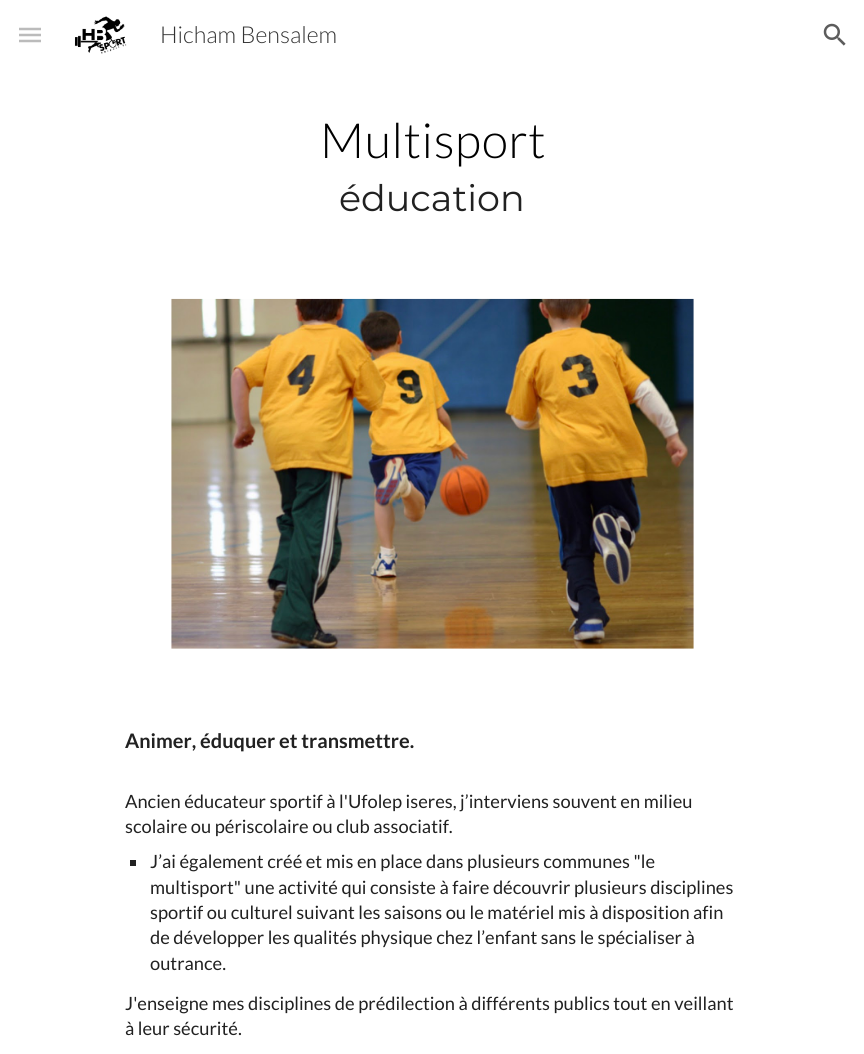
import math
import cairo

surface = cairo.ImageSurface(cairo.FORMAT_RGB24, 864, 1054)
ctx = cairo.Context(surface)
options = cairo.FontOptions()
options.set_hint_metrics(cairo.HINT_METRICS_OFF)
options.set_hint_style(cairo.HINT_STYLE_NONE)
ctx.set_font_options(options)
ctx.set_miter_limit(4)


def spaced_text(x, y, s, letter, word):
    ctx.move_to(x, y)
    for ch in s:
        ctx.show_text(ch)
        ctx.rel_move_to(letter + word * (ch == ' '), 0)


def picture(path, x, y, w, h):
    ctx.save()
    ctx.set_source_surface(cairo.ImageSurface.create_from_png(path), x, y)
    ctx.rectangle(x, y, w, h)
    ctx.fill()
    ctx.restore()


ctx.set_source_rgb(1, 1, 1)
ctx.paint()
ctx.new_path()
ctx.move_to(19, 29)
ctx.line_to(41, 29)
ctx.move_to(19, 35)
ctx.line_to(41, 35)
ctx.move_to(19, 41)
ctx.line_to(41, 41)
ctx.set_source_rgb(0.733, 0.733, 0.733)
ctx.set_line_width(2.5)
ctx.stroke()
picture("img1.png", 74, 16, 53, 38)
ctx.select_font_face("Lato Light")
ctx.set_font_size(23.25)
ctx.set_source_rgb(0.2, 0.2, 0.2)
ctx.move_to(160, 43)
ctx.show_text("Hicham Bensalem")
picture("img2.png", 823, 23, 23, 23)
ctx.set_font_size(48.5)
ctx.set_source_rgb(0, 0, 0)
spaced_text(320, 158, "Multisport", 0.6, 0)
ctx.select_font_face("Montserrat")
ctx.set_font_size(36.5)
ctx.set_source_rgb(0.129, 0.129, 0.129)
ctx.move_to(339, 211)
ctx.show_text("éducation")
picture("img3.png", 171, 298, 523, 351)
ctx.select_font_face("Lato", cairo.FONT_SLANT_NORMAL, cairo.FONT_WEIGHT_BOLD)
ctx.set_font_size(20)
ctx.move_to(125, 748)
ctx.show_text("Animer, éduquer et transmettre.")
ctx.select_font_face("Lato")
ctx.set_font_size(18.3)
ctx.move_to(125, 808)
ctx.show_text("Ancien éducateur sportif à l'Ufolep iseres, j’interviens souvent en milieu")
ctx.move_to(125, 833)
ctx.show_text("scolaire ou périscolaire ou club associatif.")
ctx.rectangle(130, 860, 6, 6)
ctx.fill()
ctx.move_to(150, 868)
ctx.show_text("J’ai également créé et mis en place dans plusieurs communes \"le")
ctx.move_to(150, 894)
ctx.show_text("multisport\" une activité qui consiste à faire découvrir plusieurs disciplines")
ctx.move_to(150, 919)
ctx.show_text("sportif ou culturel suivant les saisons ou le matériel mis à disposition afin")
ctx.move_to(150, 944)
ctx.show_text("de développer les qualités physique chez l’enfant sans le spécialiser à")
ctx.move_to(150, 970)
ctx.show_text("outrance.")
ctx.move_to(125, 1010)
ctx.show_text("J'enseigne mes disciplines de prédilection à différents publics tout en veillant")
ctx.move_to(125, 1035)
ctx.show_text("à leur sécurité.")
surface.write_to_png("page.png")
